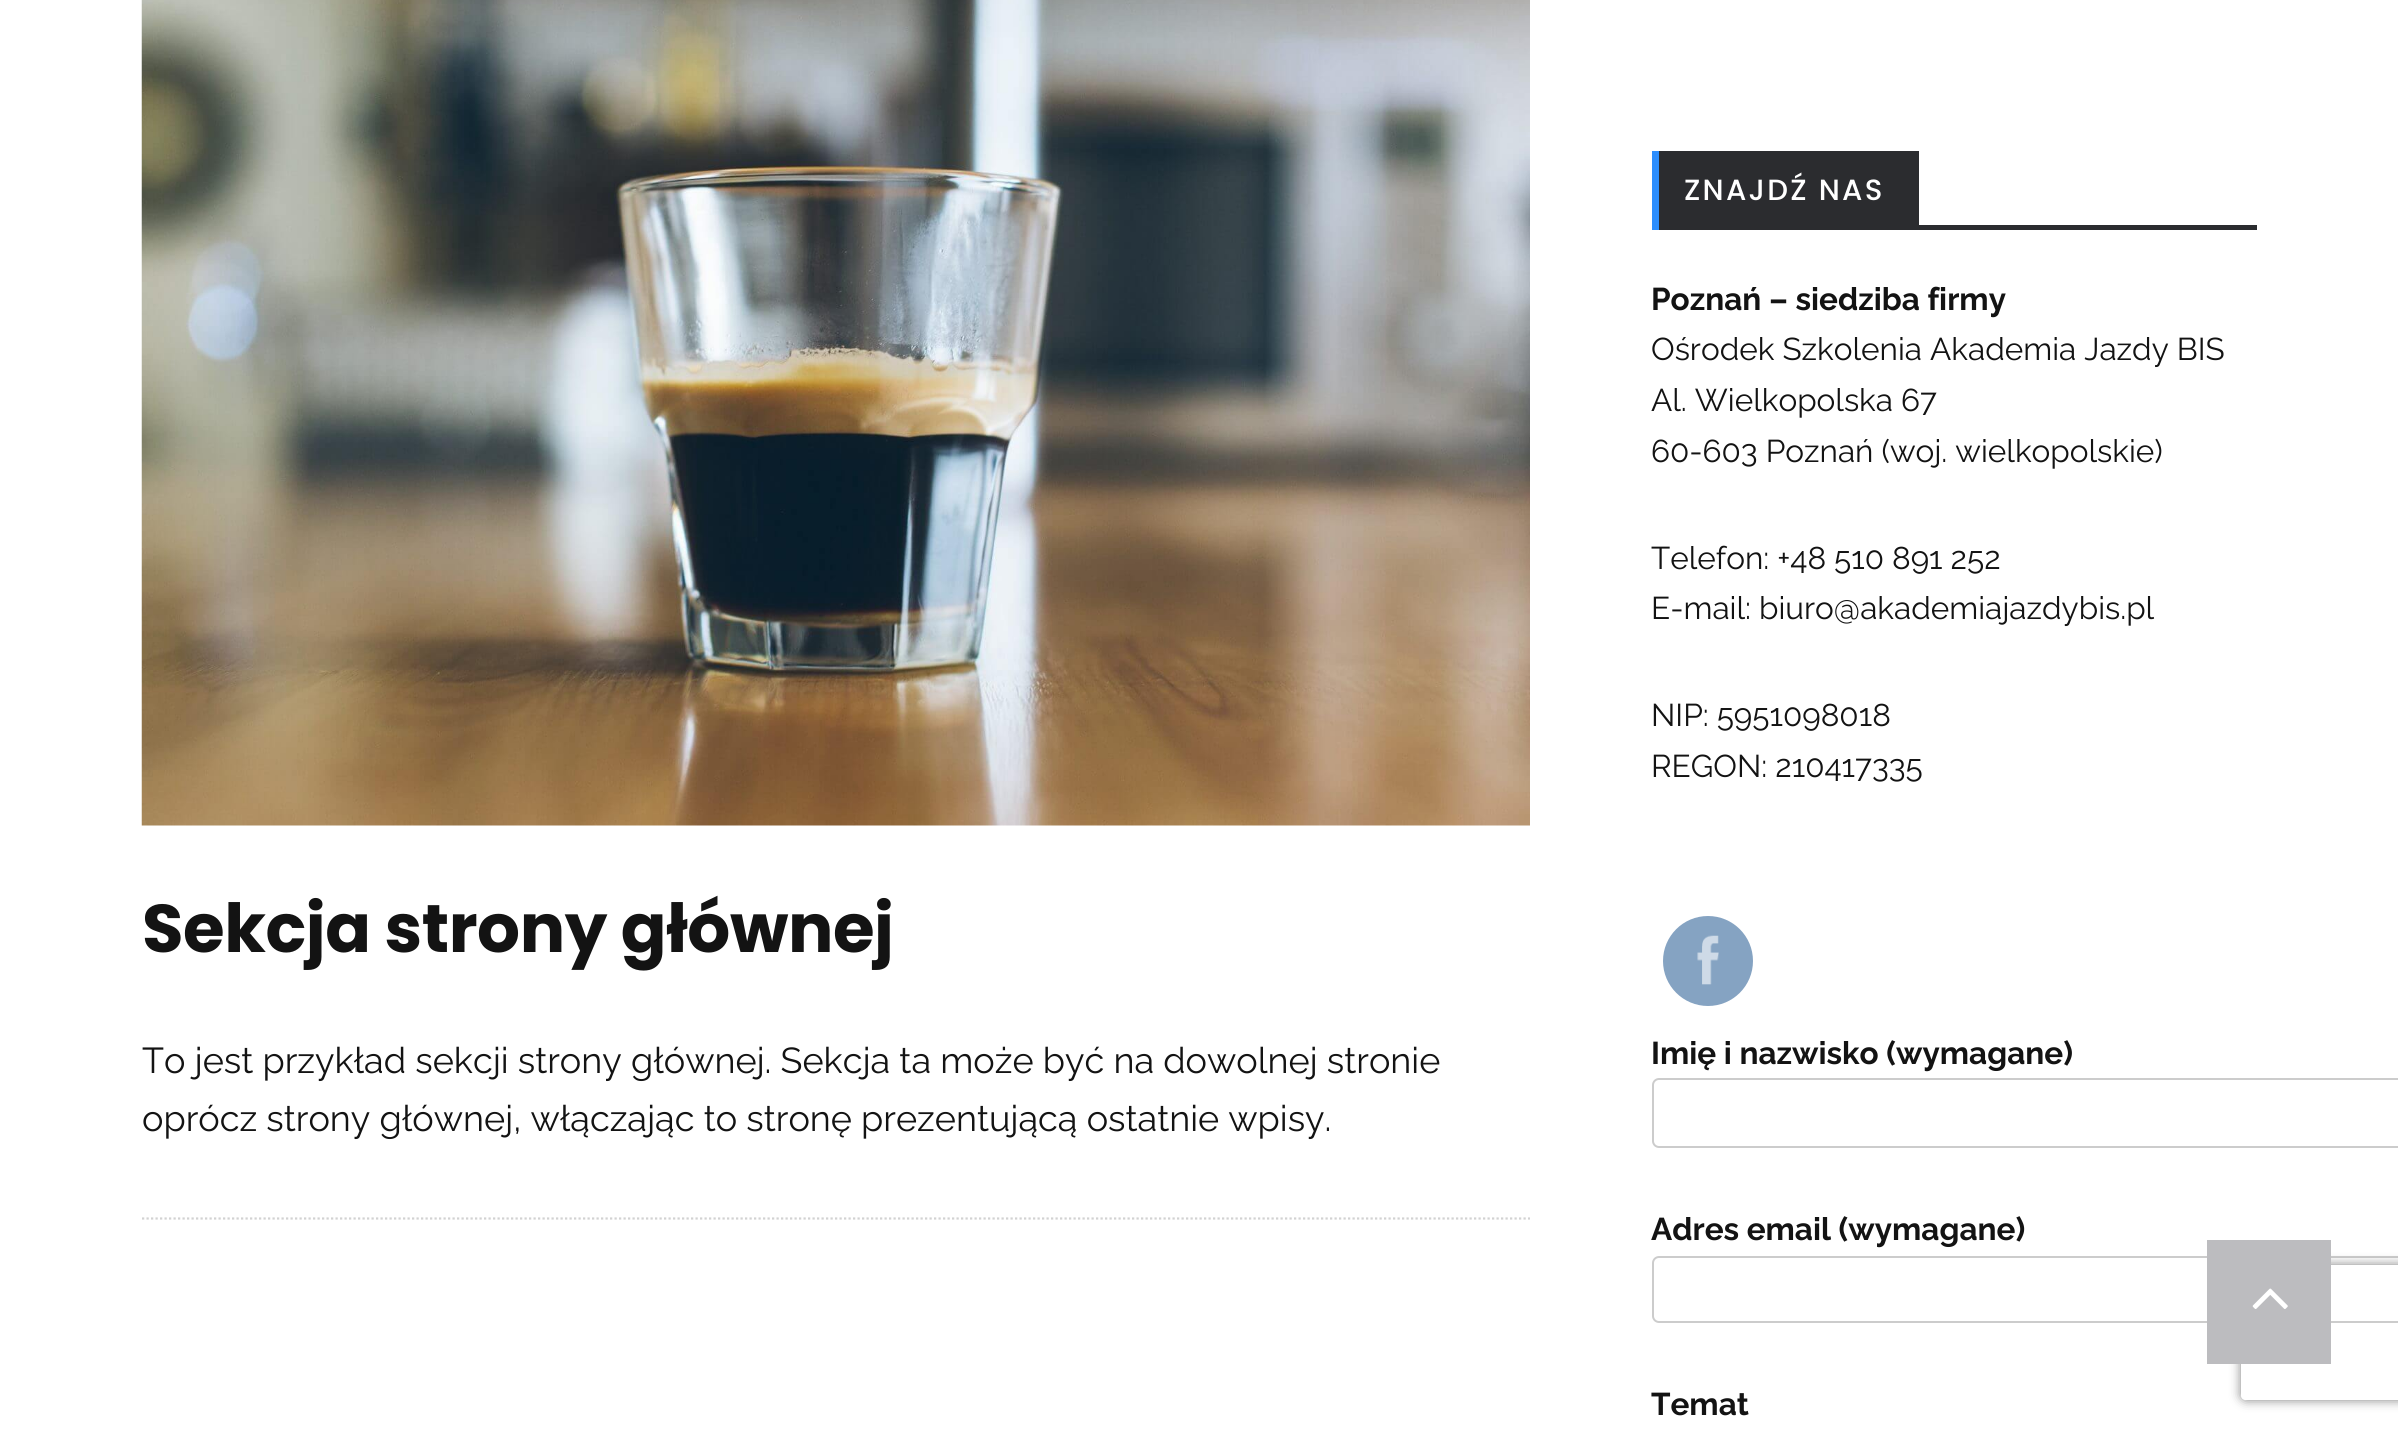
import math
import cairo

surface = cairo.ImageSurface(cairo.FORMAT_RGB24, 2398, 1429)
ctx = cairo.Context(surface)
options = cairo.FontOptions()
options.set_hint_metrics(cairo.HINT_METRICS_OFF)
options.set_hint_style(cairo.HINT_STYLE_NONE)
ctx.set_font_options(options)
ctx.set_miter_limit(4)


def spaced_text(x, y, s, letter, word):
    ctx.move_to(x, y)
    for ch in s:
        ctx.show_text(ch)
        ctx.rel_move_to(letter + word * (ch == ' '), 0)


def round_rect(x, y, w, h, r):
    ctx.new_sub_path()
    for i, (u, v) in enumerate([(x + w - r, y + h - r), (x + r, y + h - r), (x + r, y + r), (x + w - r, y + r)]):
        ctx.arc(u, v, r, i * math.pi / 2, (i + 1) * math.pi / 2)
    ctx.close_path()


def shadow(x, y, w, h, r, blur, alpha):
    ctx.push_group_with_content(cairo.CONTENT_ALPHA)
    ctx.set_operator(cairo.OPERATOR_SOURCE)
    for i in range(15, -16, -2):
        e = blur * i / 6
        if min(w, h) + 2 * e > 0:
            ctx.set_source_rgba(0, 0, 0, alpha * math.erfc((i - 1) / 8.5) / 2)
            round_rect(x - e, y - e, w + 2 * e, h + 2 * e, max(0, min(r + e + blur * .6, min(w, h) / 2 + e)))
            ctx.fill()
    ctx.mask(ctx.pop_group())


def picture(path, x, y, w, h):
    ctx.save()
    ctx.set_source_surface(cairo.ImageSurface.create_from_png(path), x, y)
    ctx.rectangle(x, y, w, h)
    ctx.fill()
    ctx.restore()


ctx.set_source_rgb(1, 1, 1)
ctx.paint()
ctx.new_path()
ctx.move_to(142, 1218.5)
ctx.line_to(1530, 1218.5)
ctx.set_source_rgb(0.824, 0.824, 0.824)
ctx.set_line_width(2.2)
ctx.set_dash([2.25, 2.25])
ctx.stroke()
picture("img1.png", 141, 0, 1389, 826)
ctx.select_font_face("Poppins", cairo.FONT_SLANT_NORMAL, cairo.FONT_WEIGHT_BOLD)
ctx.set_font_size(67.5)
ctx.set_source_rgb(0.078, 0.078, 0.078)
spaced_text(142, 952, "Sekcja strony głównej", -0.45, 0)
ctx.select_font_face("Raleway")
ctx.set_font_size(36)
ctx.move_to(142, 1073)
ctx.show_text("To jest przykład sekcji strony głównej. Sekcja ta może być na dowolnej stronie")
ctx.move_to(142, 1131)
ctx.show_text("oprócz strony głównej, włączając to stronę prezentującą ostatnie wpisy.")
ctx.set_source_rgb(0.169, 0.173, 0.184)
ctx.rectangle(1919, 225, 338, 5)
ctx.fill()
ctx.rectangle(1659, 151, 260, 79)
ctx.fill()
ctx.set_source_rgb(0.176, 0.557, 0.992)
ctx.rectangle(1652, 151, 7, 79)
ctx.fill()
ctx.select_font_face("Poppins Medium")
ctx.set_font_size(29.25)
ctx.set_source_rgb(1, 1, 1)
spaced_text(1684, 200, "ZNAJDŹ NAS", 2.25, 0)
ctx.select_font_face("Raleway", cairo.FONT_SLANT_NORMAL, cairo.FONT_WEIGHT_BOLD)
ctx.set_font_size(31.5)
ctx.set_source_rgb(0.078, 0.078, 0.078)
ctx.move_to(1651, 310)
ctx.show_text("Poznań – siedziba firmy")
ctx.select_font_face("Raleway")
ctx.move_to(1651, 360)
ctx.show_text("Ośrodek Szkolenia Akademia Jazdy BIS")
ctx.move_to(1651, 411)
ctx.show_text("Al. Wielkopolska 67")
ctx.move_to(1651, 462)
ctx.show_text("60-603 Poznań (woj. wielkopolskie)")
ctx.move_to(1651, 569)
ctx.show_text("Telefon: +48")
ctx.move_to(1834, 569)
ctx.show_text("510 891 252")
ctx.move_to(1651, 619)
ctx.show_text("E-mail:")
ctx.move_to(1759, 619)
ctx.show_text("biuro@akademiajazdybis.pl")
ctx.move_to(1651, 726)
ctx.show_text("NIP: 5951098018")
ctx.move_to(1651, 777)
ctx.show_text("REGON: 210417335")
ctx.set_source_rgb(0.522, 0.639, 0.761)
ctx.new_path()
ctx.arc(1708, 961, 45, 0, 2 * math.pi)
ctx.fill()
picture("img2.png", 1697, 935, 22, 50)
ctx.select_font_face("Raleway", cairo.FONT_SLANT_NORMAL, cairo.FONT_WEIGHT_BOLD)
ctx.set_source_rgb(0.078, 0.078, 0.078)
ctx.move_to(1651, 1064)
ctx.show_text("Imię i nazwisko (wymagane)")
round_rect(1653, 1079, 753, 68, 6)
ctx.set_source_rgb(0.8, 0.8, 0.8)
ctx.set_line_width(2)
ctx.set_dash([])
ctx.stroke()
ctx.set_source_rgb(0.078, 0.078, 0.078)
ctx.move_to(1651, 1240)
ctx.show_text("Adres email (wymagane)")
round_rect(1653, 1257, 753, 65, 6)
ctx.set_source_rgb(0.8, 0.8, 0.8)
ctx.stroke()
ctx.set_source_rgb(0.078, 0.078, 0.078)
ctx.move_to(1651, 1415)
ctx.show_text("Temat")
ctx.save()
ctx.set_fill_rule(cairo.FILL_RULE_EVEN_ODD)
ctx.new_path()
ctx.move_to(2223, 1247)
ctx.line_to(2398, 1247)
ctx.line_to(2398, 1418)
ctx.line_to(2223, 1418)
ctx.close_path()
ctx.move_to(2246, 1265)
ctx.line_to(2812, 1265)
ctx.curve_to(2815, 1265, 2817, 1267, 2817, 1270)
ctx.line_to(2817, 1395)
ctx.curve_to(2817, 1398, 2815, 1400, 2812, 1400)
ctx.line_to(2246, 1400)
ctx.curve_to(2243, 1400, 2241, 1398, 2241, 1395)
ctx.line_to(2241, 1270)
ctx.curve_to(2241, 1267, 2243, 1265, 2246, 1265)
ctx.close_path()
ctx.clip()
ctx.set_source_rgb(0.502, 0.502, 0.502)
shadow(2241, 1265, 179, 135, 5, 5.5, 1)
ctx.restore()
ctx.set_source_rgb(0.737, 0.737, 0.749)
ctx.rectangle(2207, 1240, 124, 124)
ctx.fill()
picture("img3.png", 2252, 1288, 36, 21)
surface.write_to_png("page.png")
